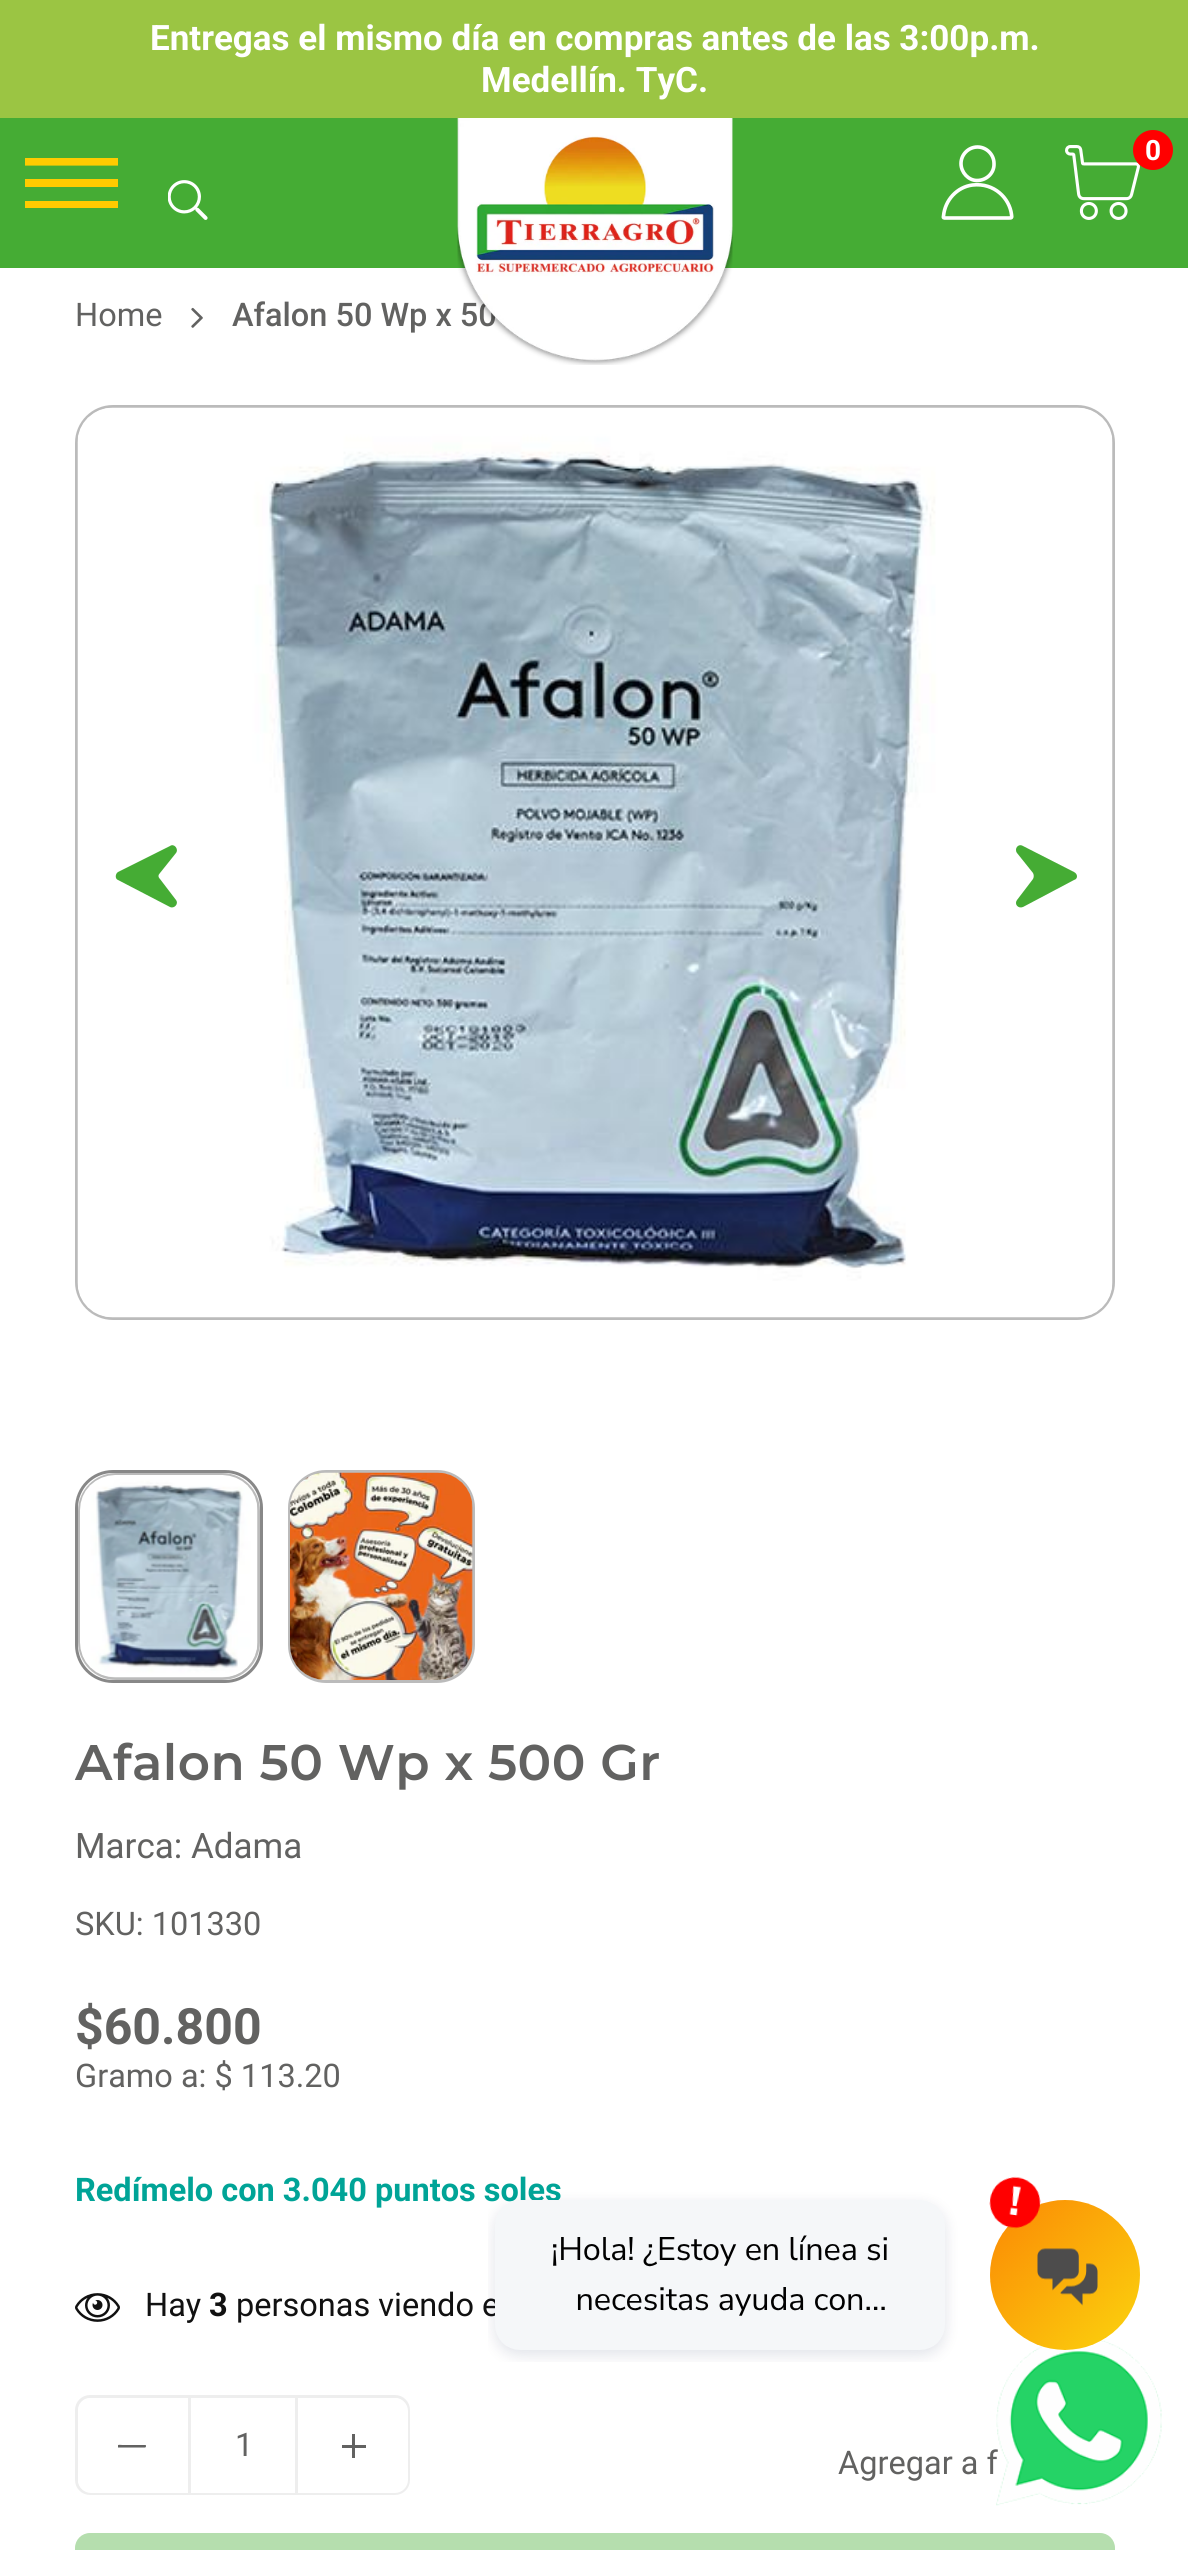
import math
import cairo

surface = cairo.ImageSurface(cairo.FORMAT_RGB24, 1188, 2550)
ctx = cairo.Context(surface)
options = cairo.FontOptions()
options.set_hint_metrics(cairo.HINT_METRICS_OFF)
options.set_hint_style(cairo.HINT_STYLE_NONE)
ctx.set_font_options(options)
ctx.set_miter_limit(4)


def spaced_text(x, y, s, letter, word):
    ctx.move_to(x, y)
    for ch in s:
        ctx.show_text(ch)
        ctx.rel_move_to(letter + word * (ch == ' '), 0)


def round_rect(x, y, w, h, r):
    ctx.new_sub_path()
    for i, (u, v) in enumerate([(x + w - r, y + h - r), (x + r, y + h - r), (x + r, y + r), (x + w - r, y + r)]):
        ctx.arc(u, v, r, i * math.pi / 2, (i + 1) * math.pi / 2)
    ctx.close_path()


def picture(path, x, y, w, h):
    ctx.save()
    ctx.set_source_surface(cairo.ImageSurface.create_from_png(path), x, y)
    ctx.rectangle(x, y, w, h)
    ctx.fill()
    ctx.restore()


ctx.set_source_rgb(1, 1, 1)
ctx.paint()
ctx.set_source_rgb(0.608, 0.773, 0.263)
ctx.rectangle(0, 0, 1188, 118)
ctx.fill()
ctx.select_font_face("Roboto", cairo.FONT_SLANT_NORMAL, cairo.FONT_WEIGHT_BOLD)
ctx.set_font_size(35)
ctx.set_source_rgb(1, 1, 1)
ctx.move_to(150, 50)
ctx.show_text("Entregas el mismo día en compras antes de las 3:00p.m.")
ctx.move_to(481, 92)
ctx.show_text("Medellín. TyC.")
ctx.set_source_rgb(0.271, 0.675, 0.204)
ctx.rectangle(0, 118, 1188, 150)
ctx.fill()
ctx.select_font_face("Roboto Medium")
ctx.set_font_size(32.5)
ctx.set_source_rgb(0.384, 0.384, 0.38)
ctx.move_to(232, 326)
ctx.show_text("Afalon 50 Wp x 50")
picture("img1.png", 457, 118, 276, 247)
ctx.new_path()
ctx.move_to(977.5, 218)
ctx.line_to(945.5, 218)
ctx.curve_to(943.5, 218, 943, 218, 943.5, 216)
ctx.curve_to(945, 200, 957, 187, 972.5, 185)
ctx.curve_to(994.5, 182.5, 1009.5, 198.5, 1011.5, 214.5)
ctx.curve_to(1012, 218, 1012, 218, 1008, 218)
ctx.close_path()
ctx.set_source_rgb(1, 1, 1)
ctx.set_line_width(3.6)
ctx.stroke()
ctx.new_path()
ctx.move_to(977.5, 147)
ctx.curve_to(986.5, 147, 994, 154.5, 994, 163.5)
ctx.curve_to(994.5, 173, 986.5, 180.5, 977, 180.5)
ctx.curve_to(968.5, 180.5, 961, 172.5, 961, 163.5)
ctx.curve_to(961, 154.5, 968.5, 147, 977.5, 147)
ctx.close_path()
ctx.stroke()
picture("img2.png", 1065, 145, 75, 75)
ctx.set_source_rgb(1, 0, 0)
ctx.arc(1153, 150, 20, 0, 2 * math.pi)
ctx.fill()
ctx.select_font_face("Roboto", cairo.FONT_SLANT_NORMAL, cairo.FONT_WEIGHT_BOLD)
ctx.set_font_size(28)
ctx.set_source_rgb(1, 1, 1)
ctx.move_to(1145, 160)
ctx.show_text("0")
ctx.save()
ctx.rectangle(25, 158, 93, 50)
ctx.clip()
ctx.new_path()
ctx.move_to(25, 161.5)
ctx.line_to(118, 161.5)
ctx.set_source_rgb(1, 0.796, 0)
ctx.set_line_width(8.2)
ctx.stroke()
ctx.restore()
ctx.set_source_rgb(1, 0.796, 0)
ctx.rectangle(25, 179, 93, 8)
ctx.fill()
picture("img3.png", 168, 180, 40, 40)
ctx.rectangle(25, 201, 93, 7)
ctx.fill()
ctx.select_font_face("Roboto")
ctx.set_font_size(32.5)
ctx.set_source_rgb(0.384, 0.384, 0.38)
ctx.move_to(75, 326)
ctx.show_text("Home")
picture("img4.png", 191, 307, 12, 21)
round_rect(76.5, 406.5, 1037, 912, 36.5)
ctx.set_source_rgb(0.733, 0.733, 0.733)
ctx.set_line_width(3)
ctx.stroke()
picture("img5.png", 77, 407, 1036, 911)
ctx.set_source_rgb(0.271, 0.675, 0.204)
ctx.new_path()
ctx.move_to(170, 907)
ctx.line_to(118, 880)
ctx.curve_to(115, 879, 115, 874, 118, 872)
ctx.line_to(170, 846)
ctx.curve_to(174, 843, 179, 849, 176, 853)
ctx.line_to(160, 873)
ctx.curve_to(158, 875, 158, 877, 160, 879)
ctx.line_to(176, 900)
ctx.curve_to(179, 904, 174, 909, 170, 907)
ctx.close_path()
ctx.fill()
ctx.new_path()
ctx.move_to(1023, 846)
ctx.line_to(1074, 872)
ctx.curve_to(1078, 874, 1078, 879, 1074, 880)
ctx.line_to(1023, 907)
ctx.curve_to(1018, 909, 1014, 904, 1017, 900)
ctx.line_to(1033, 879)
ctx.curve_to(1034, 877, 1034, 875, 1033, 873)
ctx.line_to(1017, 853)
ctx.curve_to(1014, 849, 1018, 843, 1023, 846)
ctx.close_path()
ctx.fill()
round_rect(76.5, 1471.5, 185, 210, 36.5)
ctx.set_source_rgb(0.533, 0.533, 0.533)
ctx.stroke()
round_rect(79.5, 1474.5, 179, 204, 36.5)
ctx.set_source_rgb(0.733, 0.733, 0.733)
ctx.stroke()
picture("img6.png", 80, 1475, 178, 203)
round_rect(289.5, 1471.5, 184, 210, 36.5)
ctx.stroke()
picture("img7.png", 290, 1472, 183, 208)
ctx.select_font_face("Montserrat SemiBold")
ctx.set_font_size(50)
ctx.set_source_rgb(0.384, 0.384, 0.38)
spaced_text(75, 1780, "Afalon 50 Wp x 500 Gr", 0.5, 0)
ctx.select_font_face("Roboto")
ctx.set_font_size(35)
ctx.move_to(75, 1858)
ctx.show_text("Marca: Adama")
ctx.set_font_size(32.5)
ctx.move_to(75, 1935)
ctx.show_text("SKU: 101330")
ctx.select_font_face("Roboto", cairo.FONT_SLANT_NORMAL, cairo.FONT_WEIGHT_BOLD)
ctx.set_font_size(50)
ctx.move_to(75, 2044)
ctx.show_text("$60.800")
ctx.select_font_face("Roboto")
ctx.set_font_size(32.5)
ctx.move_to(75, 2087)
ctx.show_text("Gramo a: $ 113.20")
ctx.select_font_face("Roboto", cairo.FONT_SLANT_NORMAL, cairo.FONT_WEIGHT_BOLD)
ctx.set_source_rgb(0, 0.643, 0.592)
ctx.move_to(75, 2201)
ctx.show_text("Redímelo con 3.040 puntos soles")
picture("img8.png", 75, 2293, 45, 29)
ctx.select_font_face("Roboto")
ctx.set_source_rgb(0.067, 0.067, 0.067)
ctx.move_to(145, 2316)
ctx.show_text("Hay")
ctx.select_font_face("Roboto", cairo.FONT_SLANT_NORMAL, cairo.FONT_WEIGHT_BOLD)
ctx.move_to(209, 2316)
ctx.show_text("3")
ctx.select_font_face("Roboto")
ctx.move_to(236, 2316)
ctx.show_text("personas viendo e")
round_rect(76.5, 2396.5, 332, 97, 13.5)
ctx.set_source_rgb(0.933, 0.933, 0.933)
ctx.stroke()
ctx.set_source_rgb(1, 1, 1)
ctx.new_path()
ctx.move_to(91, 2398)
ctx.line_to(188, 2398)
ctx.line_to(188, 2493)
ctx.line_to(91, 2493)
ctx.curve_to(84, 2493, 78, 2487, 78, 2480)
ctx.line_to(78, 2411)
ctx.curve_to(78, 2404, 84, 2398, 91, 2398)
ctx.close_path()
ctx.fill()
ctx.save()
ctx.rectangle(118, 2430, 32, 33)
ctx.clip()
ctx.set_source_rgb(0.384, 0.384, 0.38)
ctx.new_path()
ctx.move_to(145, 2447.5)
ctx.curve_to(146, 2447.5, 146.5, 2445.5, 145.5, 2445)
ctx.line_to(122.5, 2445)
ctx.curve_to(120, 2445, 117.5, 2444, 117.5, 2446.5)
ctx.line_to(118, 2447.5)
ctx.close_path()
ctx.fill()
ctx.restore()
ctx.rectangle(191, 2492, 104, 1)
ctx.fill()
ctx.set_source_rgb(0.933, 0.933, 0.933)
ctx.rectangle(295, 2398, 3, 95)
ctx.fill()
ctx.rectangle(188, 2398, 3, 95)
ctx.fill()
ctx.set_source_rgb(0.384, 0.384, 0.38)
ctx.move_to(235, 2456)
ctx.show_text("1")
ctx.set_source_rgb(1, 1, 1)
ctx.new_path()
ctx.move_to(298, 2398)
ctx.line_to(395, 2398)
ctx.curve_to(402, 2398, 408, 2404, 408, 2411)
ctx.line_to(408, 2480)
ctx.curve_to(408, 2487, 402, 2493, 395, 2493)
ctx.line_to(298, 2493)
ctx.close_path()
ctx.fill()
ctx.set_source_rgb(0.384, 0.384, 0.38)
ctx.rectangle(342, 2445, 24, 3)
ctx.fill()
ctx.rectangle(352, 2434, 3, 24)
ctx.fill()
ctx.move_to(838, 2474)
ctx.show_text("Agregar a f")
ctx.set_source_rgb(0.71, 0.871, 0.682)
round_rect(75, 2533, 1040, 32, 15)
ctx.fill()
picture("img10.png", 996, 2340, 166, 166)
picture("img9.png", 488, 2176, 652, 186)
surface.write_to_png("page.png")
